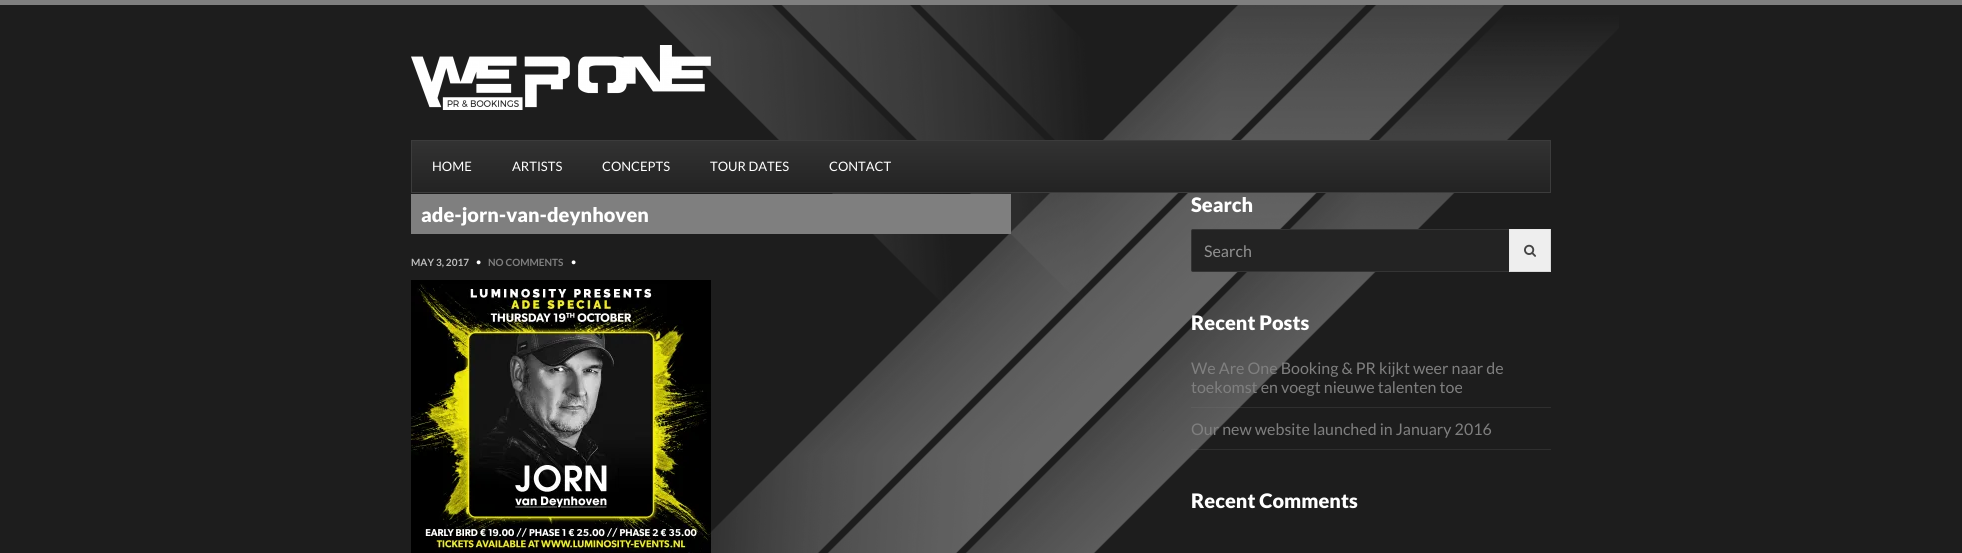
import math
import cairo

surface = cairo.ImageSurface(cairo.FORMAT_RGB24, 1962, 553)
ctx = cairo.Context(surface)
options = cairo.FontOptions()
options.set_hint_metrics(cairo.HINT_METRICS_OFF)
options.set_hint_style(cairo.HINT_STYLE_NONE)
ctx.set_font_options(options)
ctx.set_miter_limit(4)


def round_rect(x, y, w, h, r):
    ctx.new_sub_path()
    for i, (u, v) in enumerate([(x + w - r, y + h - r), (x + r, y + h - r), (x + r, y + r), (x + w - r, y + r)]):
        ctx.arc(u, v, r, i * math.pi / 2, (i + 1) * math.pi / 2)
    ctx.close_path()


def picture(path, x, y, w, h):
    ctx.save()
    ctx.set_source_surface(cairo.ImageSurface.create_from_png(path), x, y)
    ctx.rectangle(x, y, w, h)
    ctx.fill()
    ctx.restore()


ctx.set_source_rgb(0.114, 0.114, 0.114)
ctx.paint()
picture("img1.png", 643, 5, 976, 548)
ctx.set_source_rgb(0.498, 0.498, 0.498)
ctx.rectangle(0, 0, 1962, 5)
ctx.fill()
picture("img2.png", 411, 45, 300, 65)
gradient = cairo.LinearGradient(981, 141, 981, 192)
gradient.add_color_stop_rgba(0, 0.196, 0.196, 0.196, 1)
gradient.add_color_stop_rgba(1, 0.137, 0.137, 0.137, 1)
ctx.set_source(gradient)
ctx.rectangle(412, 141, 1138, 51)
ctx.fill()
ctx.rectangle(411.5, 140.5, 1139, 52)
ctx.set_source_rgb(0.235, 0.235, 0.235)
ctx.set_line_width(1)
ctx.stroke()
ctx.select_font_face("Lato")
ctx.set_font_size(13)
ctx.set_source_rgb(1, 1, 1)
ctx.move_to(432, 171)
ctx.show_text("HOME")
ctx.move_to(512, 171)
ctx.show_text("ARTISTS")
ctx.move_to(602, 171)
ctx.show_text("CONCEPTS")
ctx.move_to(710, 171)
ctx.show_text("TOUR DATES")
ctx.move_to(829, 171)
ctx.show_text("CONTACT")
ctx.set_source_rgb(0.498, 0.498, 0.498)
ctx.rectangle(411, 194, 600, 40)
ctx.fill()
ctx.select_font_face("Lato Black")
ctx.set_font_size(20)
ctx.set_source_rgb(1, 1, 1)
ctx.move_to(421, 222)
ctx.show_text("ade-jorn-van-deynhoven")
ctx.select_font_face("Lato", cairo.FONT_SLANT_NORMAL, cairo.FONT_WEIGHT_BOLD)
ctx.set_font_size(10)
ctx.set_source_rgb(0.745, 0.745, 0.745)
ctx.move_to(411, 266)
ctx.show_text("MAY 3, 2017")
ctx.set_font_size(9)
ctx.set_source_rgb(1, 1, 1)
ctx.move_to(476, 265)
ctx.show_text("•")
ctx.set_font_size(10)
ctx.set_source_rgb(0.498, 0.498, 0.498)
ctx.move_to(488, 266)
ctx.show_text("NO COMMENTS")
ctx.set_font_size(9)
ctx.set_source_rgb(1, 1, 1)
ctx.move_to(571, 265)
ctx.show_text("•")
picture("img3.png", 411, 280, 300, 273)
ctx.select_font_face("Lato Black")
ctx.set_font_size(20)
ctx.move_to(1191, 212)
ctx.show_text("Search")
ctx.set_source_rgb(0.137, 0.137, 0.137)
round_rect(1191, 229, 360, 43, 2)
ctx.fill()
round_rect(1191.5, 229.5, 359, 42, 1.5)
ctx.set_source_rgba(0.506, 0.506, 0.506, 0.18)
ctx.stroke()
ctx.select_font_face("Lato")
ctx.set_font_size(16)
ctx.set_source_rgb(0.569, 0.569, 0.569)
ctx.move_to(1204, 257)
ctx.show_text("Search")
ctx.set_source_rgb(0.933, 0.933, 0.933)
ctx.rectangle(1510, 230, 40, 41)
ctx.fill()
ctx.set_source_rgb(0.914, 0.914, 0.914)
ctx.rectangle(1509, 229, 42, 1)
ctx.fill()
ctx.set_source_rgb(0.847, 0.847, 0.847)
ctx.rectangle(1550, 229, 1, 43)
ctx.fill()
ctx.rectangle(1509, 271, 42, 1)
ctx.fill()
ctx.set_source_rgb(0.914, 0.914, 0.914)
ctx.rectangle(1509, 229, 1, 43)
ctx.fill()
picture("img4.png", 1524, 244, 12, 13)
ctx.select_font_face("Lato Black")
ctx.set_font_size(20)
ctx.set_source_rgb(1, 1, 1)
ctx.move_to(1191, 330)
ctx.show_text("Recent Posts")
ctx.set_source_rgba(0.506, 0.506, 0.506, 0.18)
ctx.rectangle(1191, 407, 360, 1)
ctx.fill()
ctx.select_font_face("Lato")
ctx.set_font_size(16)
ctx.set_source_rgb(0.498, 0.498, 0.498)
ctx.move_to(1191, 374)
ctx.show_text("We Are One Booking & PR kijkt weer naar de")
ctx.move_to(1191, 393)
ctx.show_text("toekomst en voegt nieuwe talenten toe")
ctx.set_source_rgba(0.506, 0.506, 0.506, 0.18)
ctx.rectangle(1191, 449, 360, 1)
ctx.fill()
ctx.set_source_rgb(0.498, 0.498, 0.498)
ctx.move_to(1191, 435)
ctx.show_text("Our new website launched in January 2016")
ctx.select_font_face("Lato Black")
ctx.set_font_size(20)
ctx.set_source_rgb(1, 1, 1)
ctx.move_to(1191, 508)
ctx.show_text("Recent Comments")
surface.write_to_png("page.png")
